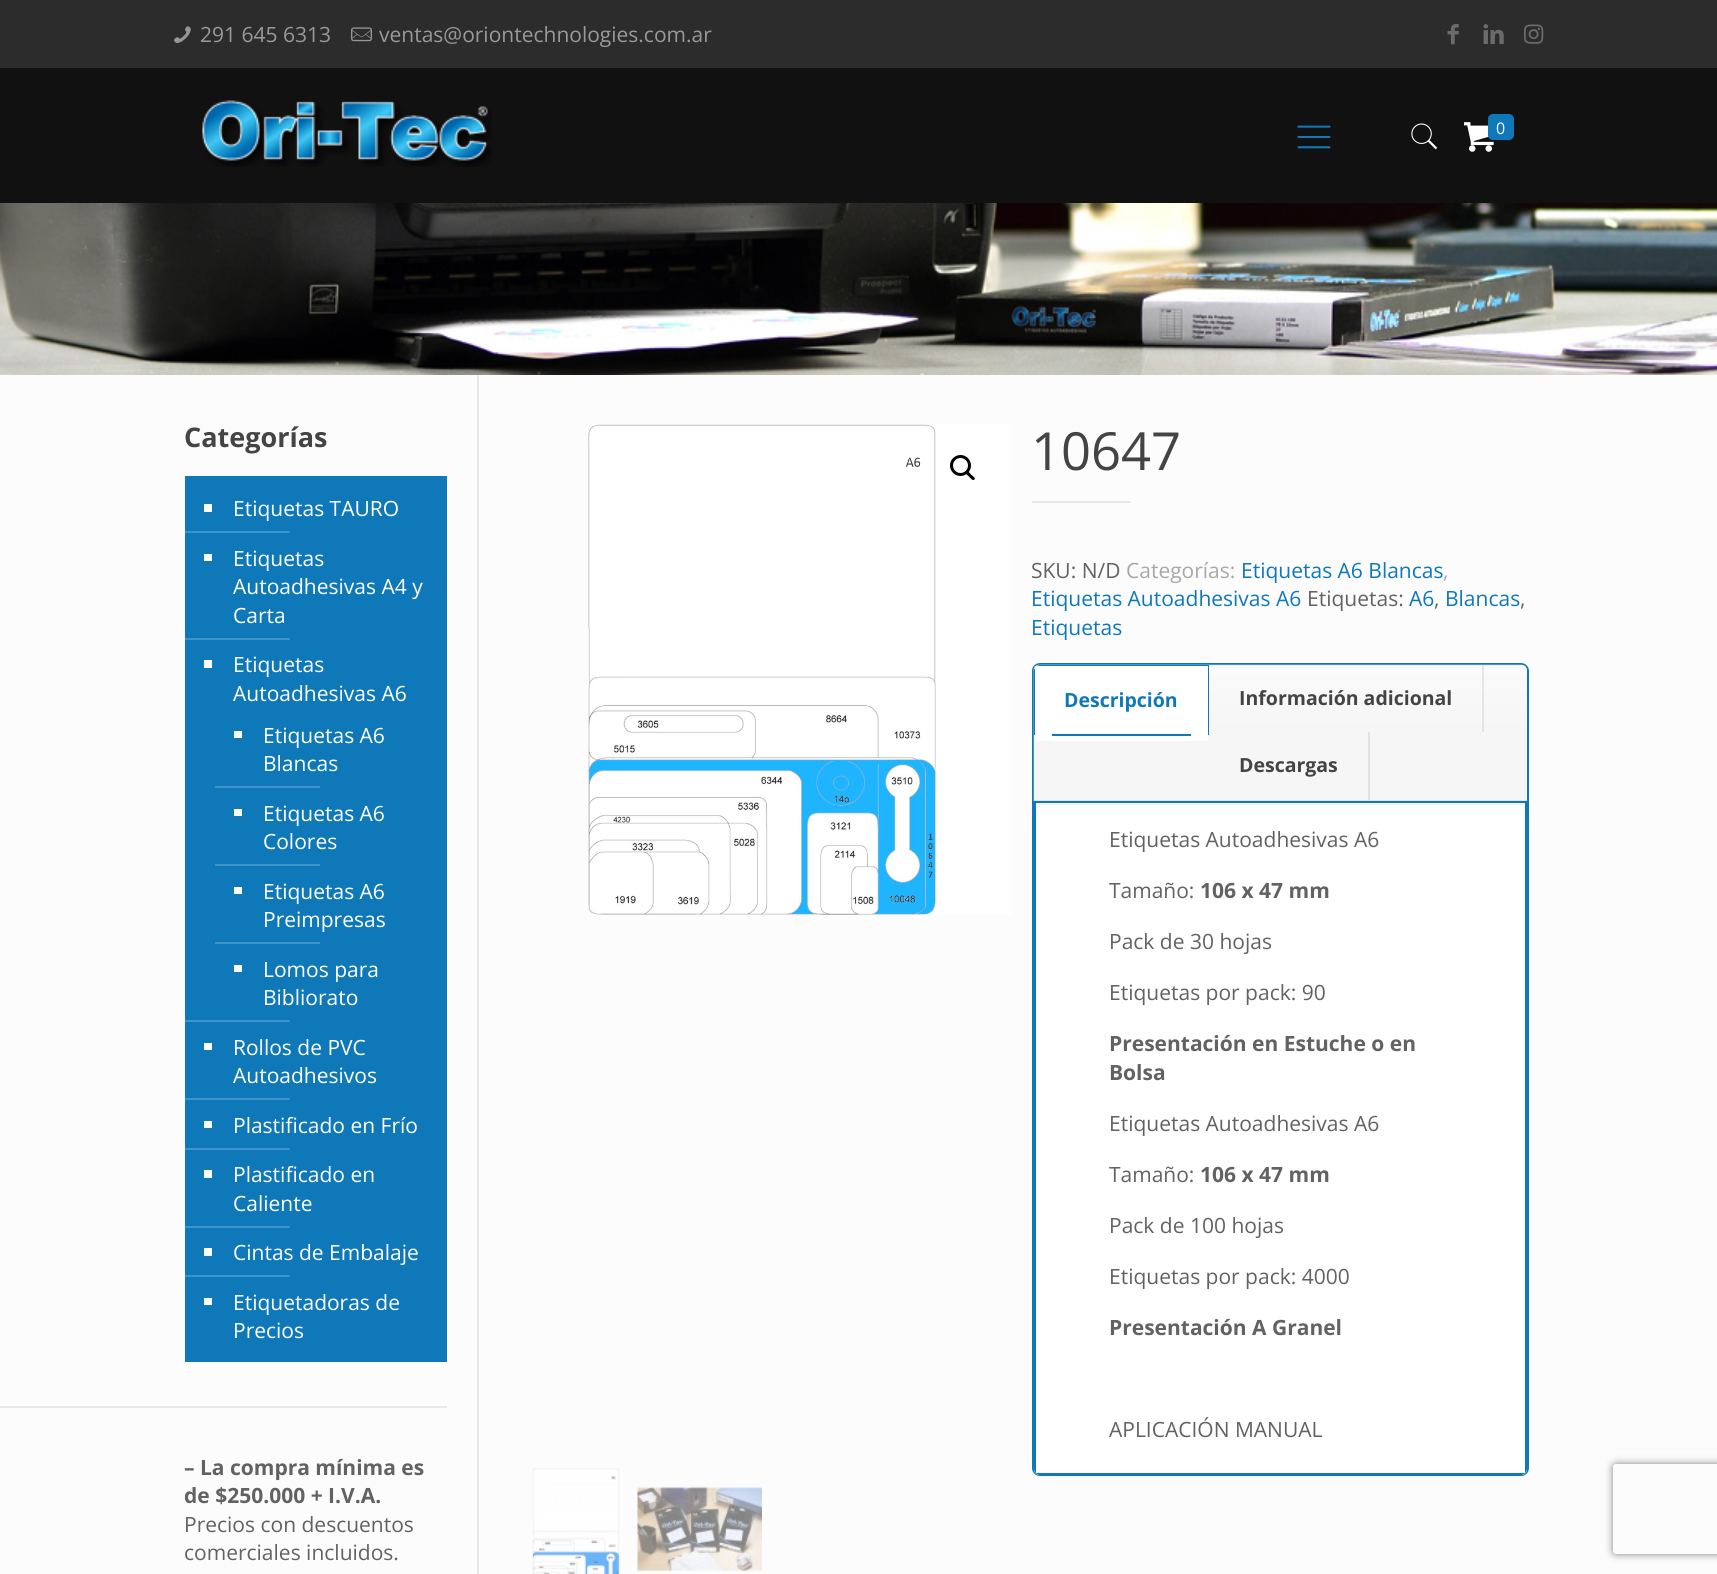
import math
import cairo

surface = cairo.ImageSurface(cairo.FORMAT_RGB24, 1717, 1574)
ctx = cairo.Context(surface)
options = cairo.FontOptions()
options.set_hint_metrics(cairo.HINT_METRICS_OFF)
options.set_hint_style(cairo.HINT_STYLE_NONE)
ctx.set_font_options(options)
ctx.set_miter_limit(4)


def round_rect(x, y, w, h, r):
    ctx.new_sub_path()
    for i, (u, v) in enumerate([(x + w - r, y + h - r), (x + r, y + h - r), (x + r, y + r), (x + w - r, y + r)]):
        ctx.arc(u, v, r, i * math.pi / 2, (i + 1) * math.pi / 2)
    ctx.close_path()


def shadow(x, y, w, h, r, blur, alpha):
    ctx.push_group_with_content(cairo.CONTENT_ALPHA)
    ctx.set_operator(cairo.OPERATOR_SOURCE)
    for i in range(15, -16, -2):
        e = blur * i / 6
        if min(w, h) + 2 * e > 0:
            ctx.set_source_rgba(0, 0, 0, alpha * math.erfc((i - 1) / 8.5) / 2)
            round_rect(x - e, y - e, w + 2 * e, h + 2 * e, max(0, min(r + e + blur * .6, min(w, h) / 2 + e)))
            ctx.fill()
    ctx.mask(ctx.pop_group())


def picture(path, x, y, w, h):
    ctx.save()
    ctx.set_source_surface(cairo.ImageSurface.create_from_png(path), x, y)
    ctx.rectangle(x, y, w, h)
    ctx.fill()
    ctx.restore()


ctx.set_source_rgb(0.988, 0.988, 0.988)
ctx.paint()
picture("img1.png", 0, 203, 1717, 172)
ctx.set_source_rgb(0.173, 0.173, 0.173)
ctx.rectangle(0, 0, 1717, 68)
ctx.fill()
picture("img2.png", 174, 26, 17, 17)
ctx.select_font_face("Open Sans")
ctx.set_font_size(21)
ctx.set_source_rgb(0.6, 0.6, 0.6)
ctx.move_to(200, 42)
ctx.show_text("291 645 6313")
picture("img3.png", 351, 27, 21, 15)
ctx.move_to(379, 42)
ctx.show_text("ventas@oriontechnologies.com.ar")
picture("img4.png", 1447, 24, 12, 21)
picture("img5.png", 1483, 24, 21, 20)
picture("img6.png", 1524, 24, 20, 20)
ctx.set_source_rgb(0.067, 0.067, 0.067)
ctx.rectangle(0, 68, 1717, 135)
ctx.fill()
picture("img7.png", 201, 100, 291, 67)
picture("img8.png", 1297, 125, 34, 24)
picture("img9.png", 1411, 123, 27, 27)
picture("img10.png", 1464, 122, 30, 30)
ctx.set_source_rgb(0.055, 0.471, 0.725)
round_rect(1488, 114, 26, 26, 5)
ctx.fill()
ctx.set_font_size(16)
ctx.set_source_rgb(1, 1, 1)
ctx.move_to(1496, 134)
ctx.show_text("0")
ctx.set_source_rgb(0.91, 0.91, 0.91)
ctx.rectangle(477, 375, 2, 1199)
ctx.fill()
ctx.select_font_face("Open Sans", cairo.FONT_SLANT_NORMAL, cairo.FONT_WEIGHT_BOLD)
ctx.set_font_size(27)
ctx.set_source_rgb(0.267, 0.267, 0.267)
ctx.move_to(184, 447)
ctx.show_text("Categorías")
ctx.set_source_rgb(0.055, 0.471, 0.725)
ctx.rectangle(185, 476, 262, 886)
ctx.fill()
ctx.set_source_rgb(1, 1, 1)
ctx.rectangle(204, 504, 8, 8)
ctx.fill()
ctx.select_font_face("Open Sans")
ctx.set_font_size(21)
ctx.move_to(233, 516)
ctx.show_text("Etiquetas TAURO")
ctx.set_source_rgb(0.243, 0.576, 0.78)
ctx.rectangle(185, 531, 105, 2)
ctx.fill()
ctx.set_source_rgb(1, 1, 1)
ctx.rectangle(204, 554, 8, 7)
ctx.fill()
ctx.move_to(233, 566)
ctx.show_text("Etiquetas")
ctx.move_to(233, 594)
ctx.show_text("Autoadhesivas A4 y")
ctx.move_to(233, 623)
ctx.show_text("Carta")
ctx.set_source_rgb(0.243, 0.576, 0.78)
ctx.rectangle(185, 638, 105, 2)
ctx.fill()
ctx.set_source_rgb(1, 1, 1)
ctx.rectangle(204, 660, 8, 8)
ctx.fill()
ctx.move_to(233, 672)
ctx.show_text("Etiquetas")
ctx.move_to(233, 701)
ctx.show_text("Autoadhesivas A6")
ctx.rectangle(234, 731, 8, 7)
ctx.fill()
ctx.move_to(263, 743)
ctx.show_text("Etiquetas A6")
ctx.move_to(263, 771)
ctx.show_text("Blancas")
ctx.set_source_rgb(0.243, 0.576, 0.78)
ctx.rectangle(215, 786, 105, 2)
ctx.fill()
ctx.set_source_rgb(1, 1, 1)
ctx.rectangle(234, 809, 8, 7)
ctx.fill()
ctx.move_to(263, 821)
ctx.show_text("Etiquetas A6")
ctx.move_to(263, 849)
ctx.show_text("Colores")
ctx.set_source_rgb(0.243, 0.576, 0.78)
ctx.rectangle(215, 864, 105, 2)
ctx.fill()
ctx.set_source_rgb(1, 1, 1)
ctx.rectangle(234, 887, 8, 7)
ctx.fill()
ctx.move_to(263, 899)
ctx.show_text("Etiquetas A6")
ctx.move_to(263, 927)
ctx.show_text("Preimpresas")
ctx.set_source_rgb(0.243, 0.576, 0.78)
ctx.rectangle(215, 942, 105, 2)
ctx.fill()
ctx.set_source_rgb(1, 1, 1)
ctx.rectangle(234, 965, 8, 7)
ctx.fill()
ctx.move_to(263, 977)
ctx.show_text("Lomos para")
ctx.move_to(263, 1005)
ctx.show_text("Bibliorato")
ctx.set_source_rgb(0.243, 0.576, 0.78)
ctx.rectangle(185, 1020, 105, 2)
ctx.fill()
ctx.set_source_rgb(1, 1, 1)
ctx.rectangle(204, 1043, 8, 7)
ctx.fill()
ctx.move_to(233, 1055)
ctx.show_text("Rollos de PVC")
ctx.move_to(233, 1083)
ctx.show_text("Autoadhesivos")
ctx.set_source_rgb(0.243, 0.576, 0.78)
ctx.rectangle(185, 1098, 105, 2)
ctx.fill()
ctx.set_source_rgb(1, 1, 1)
ctx.rectangle(204, 1121, 8, 7)
ctx.fill()
ctx.move_to(233, 1133)
ctx.show_text("Plastificado en Frío")
ctx.set_source_rgb(0.243, 0.576, 0.78)
ctx.rectangle(185, 1148, 105, 2)
ctx.fill()
ctx.set_source_rgb(1, 1, 1)
ctx.rectangle(204, 1170, 8, 8)
ctx.fill()
ctx.move_to(233, 1182)
ctx.show_text("Plastificado en")
ctx.move_to(233, 1211)
ctx.show_text("Caliente")
ctx.set_source_rgb(0.243, 0.576, 0.78)
ctx.rectangle(185, 1226, 105, 2)
ctx.fill()
ctx.set_source_rgb(1, 1, 1)
ctx.rectangle(204, 1248, 8, 8)
ctx.fill()
ctx.move_to(233, 1260)
ctx.show_text("Cintas de Embalaje")
ctx.set_source_rgb(0.243, 0.576, 0.78)
ctx.rectangle(185, 1275, 105, 2)
ctx.fill()
ctx.set_source_rgb(1, 1, 1)
ctx.rectangle(204, 1298, 8, 7)
ctx.fill()
ctx.move_to(233, 1310)
ctx.show_text("Etiquetadoras de")
ctx.move_to(233, 1338)
ctx.show_text("Precios")
ctx.set_source_rgb(0.91, 0.91, 0.91)
ctx.rectangle(0, 1406, 447, 2)
ctx.fill()
ctx.select_font_face("Open Sans", cairo.FONT_SLANT_NORMAL, cairo.FONT_WEIGHT_BOLD)
ctx.set_source_rgb(0.384, 0.384, 0.384)
ctx.move_to(184, 1475)
ctx.show_text("– La compra mínima es")
ctx.move_to(184, 1503)
ctx.show_text("de $250.000 + I.V.A.")
ctx.select_font_face("Open Sans")
ctx.move_to(184, 1532)
ctx.show_text("Precios con descuentos")
ctx.move_to(184, 1560)
ctx.show_text("comerciales incluidos.")
picture("img11.png", 588, 424, 423, 491)
ctx.arc(960.5, 465.5, 9, 0, 2 * math.pi)
ctx.set_source_rgb(0, 0, 0)
ctx.set_line_width(3)
ctx.stroke()
ctx.new_path()
ctx.move_to(966, 471.5)
ctx.curve_to(967.5, 469.5, 970, 473.5, 971, 474.5)
ctx.curve_to(972, 475.5, 976, 478, 974.5, 479.5)
ctx.curve_to(972.5, 481.5, 970, 477.5, 969, 476.5)
ctx.curve_to(968, 475.5, 964, 473, 966, 471.5)
ctx.close_path()
ctx.fill()
picture("img12.png", 532, 1468, 88, 106)
picture("img13.png", 637, 1486, 125, 88)
ctx.set_font_size(52.5)
ctx.set_source_rgb(0.267, 0.267, 0.267)
ctx.move_to(1031, 470)
ctx.show_text("10647")
ctx.set_source_rgb(0.91, 0.91, 0.91)
ctx.rectangle(1032, 501, 99, 2)
ctx.fill()
ctx.set_font_size(21)
ctx.set_source_rgb(0.384, 0.384, 0.384)
ctx.move_to(1031, 578)
ctx.show_text("SKU: N/D")
ctx.set_source_rgb(0.659, 0.659, 0.659)
ctx.move_to(1126, 578)
ctx.show_text("Categorías:")
ctx.set_source_rgb(0.055, 0.471, 0.725)
ctx.move_to(1241, 578)
ctx.show_text("Etiquetas A6 Blancas")
ctx.set_source_rgb(0.659, 0.659, 0.659)
ctx.move_to(1443, 578)
ctx.show_text(",")
ctx.set_source_rgb(0.055, 0.471, 0.725)
ctx.move_to(1031, 606)
ctx.show_text("Etiquetas Autoadhesivas A6")
ctx.set_source_rgb(0.384, 0.384, 0.384)
ctx.move_to(1307, 606)
ctx.show_text("Etiquetas:")
ctx.set_source_rgb(0.055, 0.471, 0.725)
ctx.move_to(1409, 606)
ctx.show_text("A6")
ctx.set_source_rgb(0.384, 0.384, 0.384)
ctx.move_to(1434, 606)
ctx.show_text(",")
ctx.set_source_rgb(0.055, 0.471, 0.725)
ctx.move_to(1445, 606)
ctx.show_text("Blancas")
ctx.set_source_rgb(0.384, 0.384, 0.384)
ctx.move_to(1520, 606)
ctx.show_text(",")
ctx.set_source_rgb(0.055, 0.471, 0.725)
ctx.move_to(1031, 635)
ctx.show_text("Etiquetas")
round_rect(1033, 664, 495, 811, 7)
ctx.set_line_width(2)
ctx.stroke()
picture("img14.png", 1033, 664, 494, 137)
ctx.set_source_rgba(0, 0, 0, 0.08)
ctx.rectangle(1034, 800, 493, 1)
ctx.fill()
ctx.set_source_rgb(0.055, 0.471, 0.725)
ctx.set_fill_rule(cairo.FILL_RULE_EVEN_ODD)
ctx.new_path()
ctx.move_to(1040, 665)
ctx.curve_to(1037, 665, 1034, 668, 1034, 671)
ctx.line_to(1034, 735)
ctx.line_to(1209, 735)
ctx.line_to(1209, 665)
ctx.close_path()
ctx.move_to(1036, 667)
ctx.line_to(1036, 733)
ctx.line_to(1207, 733)
ctx.line_to(1207, 667)
ctx.close_path()
ctx.fill()
ctx.save()
ctx.set_fill_rule(cairo.FILL_RULE_WINDING)
round_rect(1034, 665, 493, 810, 6)
ctx.clip()
ctx.set_source_rgb(1, 1, 1)
ctx.rectangle(1035, 666, 173, 68)
ctx.fill()
ctx.restore()
ctx.select_font_face("Open Sans", cairo.FONT_SLANT_NORMAL, cairo.FONT_WEIGHT_BOLD)
ctx.set_font_size(19.5)
ctx.move_to(1064, 707)
ctx.show_text("Descripción")
ctx.set_source_rgb(1, 1, 1)
ctx.rectangle(1035, 734, 173, 7)
ctx.fill()
ctx.set_source_rgb(0.055, 0.471, 0.725)
ctx.rectangle(1052, 734, 139, 2)
ctx.fill()
ctx.set_source_rgba(0, 0, 0, 0.08)
ctx.rectangle(1482, 665, 2, 67)
ctx.fill()
ctx.set_source_rgb(0.267, 0.267, 0.267)
ctx.move_to(1239, 705)
ctx.show_text("Información adicional")
ctx.set_source_rgb(0.886, 0.886, 0.886)
ctx.rectangle(1368, 732, 2, 68)
ctx.fill()
ctx.set_source_rgb(0.267, 0.267, 0.267)
ctx.move_to(1239, 772)
ctx.show_text("Descargas")
ctx.set_source_rgb(1, 1, 1)
ctx.new_path()
ctx.move_to(1034, 801)
ctx.line_to(1527, 801)
ctx.line_to(1527, 1469)
ctx.curve_to(1527, 1472.5, 1524.5, 1475, 1521, 1475)
ctx.line_to(1040, 1475)
ctx.curve_to(1036.5, 1475, 1034, 1472.5, 1034, 1469)
ctx.close_path()
ctx.fill()
picture("img15.png", 1036, 803, 489, 2)
ctx.set_source_rgb(0.055, 0.471, 0.725)
ctx.new_path()
ctx.move_to(1034, 801)
ctx.line_to(1034, 1469)
ctx.curve_to(1034, 1472, 1037, 1475, 1040, 1475)
ctx.line_to(1521, 1475)
ctx.curve_to(1524, 1475, 1527, 1472, 1527, 1469)
ctx.line_to(1527, 801)
ctx.close_path()
ctx.move_to(1036, 803)
ctx.line_to(1036, 1473)
ctx.line_to(1525, 1473)
ctx.line_to(1525, 803)
ctx.close_path()
ctx.fill()
ctx.select_font_face("Open Sans")
ctx.set_font_size(21)
ctx.set_source_rgb(0.384, 0.384, 0.384)
ctx.move_to(1109, 847)
ctx.show_text("Etiquetas Autoadhesivas A6")
ctx.move_to(1109, 898)
ctx.show_text("Tamaño:")
ctx.select_font_face("Open Sans", cairo.FONT_SLANT_NORMAL, cairo.FONT_WEIGHT_BOLD)
ctx.move_to(1200, 898)
ctx.show_text("106 x 47 mm")
ctx.select_font_face("Open Sans")
ctx.move_to(1109, 949)
ctx.show_text("Pack de 30 hojas")
ctx.move_to(1109, 1000)
ctx.show_text("Etiquetas por pack: 90")
ctx.select_font_face("Open Sans", cairo.FONT_SLANT_NORMAL, cairo.FONT_WEIGHT_BOLD)
ctx.move_to(1109, 1051)
ctx.show_text("Presentación en Estuche o en")
ctx.move_to(1109, 1080)
ctx.show_text("Bolsa")
ctx.select_font_face("Open Sans")
ctx.move_to(1109, 1131)
ctx.show_text("Etiquetas Autoadhesivas A6")
ctx.move_to(1109, 1182)
ctx.show_text("Tamaño:")
ctx.select_font_face("Open Sans", cairo.FONT_SLANT_NORMAL, cairo.FONT_WEIGHT_BOLD)
ctx.move_to(1200, 1182)
ctx.show_text("106 x 47 mm")
ctx.select_font_face("Open Sans")
ctx.move_to(1109, 1233)
ctx.show_text("Pack de 100 hojas")
ctx.move_to(1109, 1284)
ctx.show_text("Etiquetas por pack: 4000")
ctx.select_font_face("Open Sans", cairo.FONT_SLANT_NORMAL, cairo.FONT_WEIGHT_BOLD)
ctx.move_to(1109, 1335)
ctx.show_text("Presentación A Granel")
ctx.select_font_face("Open Sans")
ctx.move_to(1109, 1437)
ctx.show_text("APLICACIÓN MANUAL")
ctx.save()
ctx.new_path()
ctx.move_to(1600, 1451)
ctx.line_to(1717, 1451)
ctx.line_to(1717, 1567)
ctx.line_to(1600, 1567)
ctx.close_path()
ctx.move_to(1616, 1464)
ctx.line_to(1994, 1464)
ctx.curve_to(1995.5, 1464, 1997, 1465.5, 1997, 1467)
ctx.line_to(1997, 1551)
ctx.curve_to(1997, 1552.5, 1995.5, 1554, 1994, 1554)
ctx.line_to(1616, 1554)
ctx.curve_to(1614.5, 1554, 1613, 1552.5, 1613, 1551)
ctx.line_to(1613, 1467)
ctx.curve_to(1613, 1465.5, 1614.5, 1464, 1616, 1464)
ctx.close_path()
ctx.clip()
ctx.set_source_rgb(0.502, 0.502, 0.502)
shadow(1613, 1464, 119, 90, 3, 4, 1)
ctx.restore()
surface.write_to_png("page.png")
